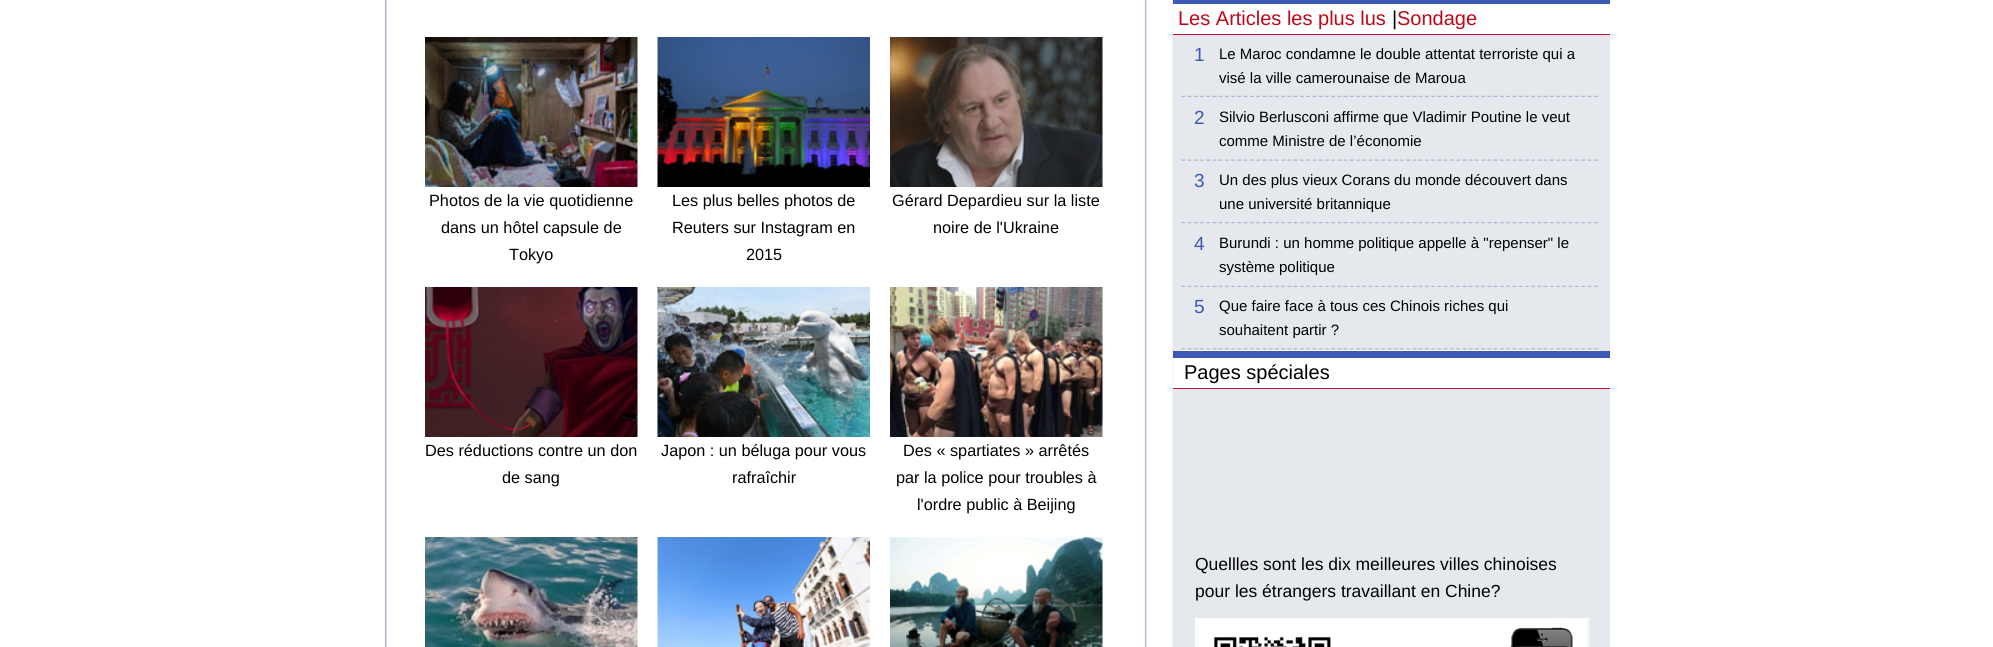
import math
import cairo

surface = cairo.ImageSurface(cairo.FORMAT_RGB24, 1993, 647)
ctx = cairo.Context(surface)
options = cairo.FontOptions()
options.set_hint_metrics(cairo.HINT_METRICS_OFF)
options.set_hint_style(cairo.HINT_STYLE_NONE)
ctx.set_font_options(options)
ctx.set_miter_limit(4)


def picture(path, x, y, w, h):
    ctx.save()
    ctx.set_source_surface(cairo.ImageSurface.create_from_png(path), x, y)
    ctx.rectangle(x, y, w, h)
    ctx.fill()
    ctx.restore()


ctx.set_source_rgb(1, 1, 1)
ctx.paint()
picture("img1.png", 385, 0, 1225, 647)
picture("img2.png", 425, 37, 213, 150)
ctx.select_font_face("Liberation Sans")
ctx.set_font_size(16.25)
ctx.set_source_rgb(0, 0, 0)
ctx.move_to(429, 206)
ctx.show_text("Photos de la vie quotidienne")
ctx.move_to(441, 233)
ctx.show_text("dans un hôtel capsule de")
ctx.move_to(509, 260)
ctx.show_text("Tokyo")
picture("img3.png", 657, 37, 213, 150)
ctx.move_to(672, 206)
ctx.show_text("Les plus belles photos de")
ctx.move_to(672, 233)
ctx.show_text("Reuters sur Instagram en")
ctx.move_to(746, 260)
ctx.show_text("2015")
picture("img4.png", 890, 37, 213, 150)
ctx.move_to(892, 206)
ctx.show_text("Gérard Depardieu sur la liste")
ctx.move_to(933, 233)
ctx.show_text("noire de l'Ukraine")
picture("img5.png", 425, 287, 213, 150)
ctx.move_to(425, 456)
ctx.show_text("Des réductions contre un don")
ctx.move_to(502, 483)
ctx.show_text("de sang")
picture("img6.png", 657, 287, 213, 150)
ctx.move_to(661, 456)
ctx.show_text("Japon : un béluga pour vous")
ctx.move_to(732, 483)
ctx.show_text("rafraîchir")
picture("img7.png", 890, 287, 213, 150)
ctx.move_to(903, 456)
ctx.show_text("Des « spartiates » arrêtés")
ctx.move_to(896, 483)
ctx.show_text("par la police pour troubles à")
ctx.move_to(917, 510)
ctx.show_text("l'ordre public à Beijing")
picture("img8.png", 425, 537, 213, 110)
picture("img9.png", 657, 537, 213, 110)
picture("img10.png", 890, 537, 213, 110)
ctx.set_source_rgb(1, 1, 1)
ctx.rectangle(1173, 4, 437, 30)
ctx.fill()
ctx.set_source_rgb(0.235, 0.349, 0.714)
ctx.rectangle(1173, 0, 437, 4)
ctx.fill()
ctx.set_source_rgb(0.753, 0.051, 0.243)
ctx.rectangle(1173, 34, 437, 1)
ctx.fill()
ctx.set_font_size(20)
ctx.set_source_rgb(0.749, 0.031, 0.094)
ctx.move_to(1178, 25)
ctx.show_text("Les Articles les plus lus")
ctx.set_source_rgb(0, 0, 0)
ctx.move_to(1392, 25)
ctx.show_text("|")
ctx.set_source_rgb(0.749, 0.031, 0.094)
ctx.move_to(1397, 25)
ctx.show_text("Sondage")
ctx.set_source_rgb(1, 1, 0.992)
ctx.rectangle(1181, 350, 419, 1)
ctx.fill()
picture("img11.png", 1181, 95, 419, 2)
ctx.set_font_size(19)
ctx.set_source_rgb(0.235, 0.349, 0.714)
ctx.move_to(1194, 61)
ctx.show_text("1")
ctx.set_font_size(15)
ctx.set_source_rgb(0, 0, 0)
ctx.move_to(1219, 59)
ctx.show_text("Le Maroc condamne le double attentat terroriste qui a")
ctx.move_to(1219, 83)
ctx.show_text("visé la ville camerounaise de Maroua")
picture("img12.png", 1181, 159, 419, 2)
ctx.set_font_size(19)
ctx.set_source_rgb(0.235, 0.349, 0.714)
ctx.move_to(1194, 124)
ctx.show_text("2")
ctx.set_font_size(15)
ctx.set_source_rgb(0, 0, 0)
ctx.move_to(1219, 122)
ctx.show_text("Silvio Berlusconi affirme que Vladimir Poutine le veut")
ctx.move_to(1219, 146)
ctx.show_text("comme Ministre de l’économie")
picture("img13.png", 1181, 222, 419, 2)
ctx.set_font_size(19)
ctx.set_source_rgb(0.235, 0.349, 0.714)
ctx.move_to(1194, 187)
ctx.show_text("3")
ctx.set_font_size(15)
ctx.set_source_rgb(0, 0, 0)
ctx.move_to(1219, 185)
ctx.show_text("Un des plus vieux Corans du monde découvert dans")
ctx.move_to(1219, 209)
ctx.show_text("une université britannique")
picture("img11.png", 1181, 285, 419, 2)
ctx.set_font_size(19)
ctx.set_source_rgb(0.235, 0.349, 0.714)
ctx.move_to(1194, 250)
ctx.show_text("4")
ctx.set_font_size(15)
ctx.set_source_rgb(0, 0, 0)
ctx.move_to(1219, 248)
ctx.show_text("Burundi : un homme politique appelle à \"repenser\" le")
ctx.move_to(1219, 272)
ctx.show_text("système politique")
picture("img14.png", 1181, 348, 419, 2)
ctx.set_font_size(19)
ctx.set_source_rgb(0.235, 0.349, 0.714)
ctx.move_to(1194, 313)
ctx.show_text("5")
ctx.set_font_size(15)
ctx.set_source_rgb(0, 0, 0)
ctx.move_to(1219, 311)
ctx.show_text("Que faire face à tous ces Chinois riches qui")
ctx.move_to(1219, 335)
ctx.show_text("souhaitent partir ?")
ctx.set_source_rgb(1, 1, 1)
ctx.rectangle(1173, 358, 437, 30)
ctx.fill()
ctx.set_source_rgb(0.235, 0.349, 0.714)
ctx.rectangle(1173, 351, 437, 7)
ctx.fill()
ctx.set_source_rgb(0.753, 0.051, 0.243)
ctx.rectangle(1173, 388, 437, 1)
ctx.fill()
ctx.set_font_size(20)
ctx.set_source_rgb(0, 0, 0)
ctx.move_to(1184, 379)
ctx.show_text("Pages spéciales")
ctx.set_font_size(17.5)
ctx.move_to(1195, 570)
ctx.show_text("Quellles sont les dix meilleures villes chinoises")
ctx.move_to(1195, 597)
ctx.show_text("pour les étrangers travaillant en Chine?")
ctx.rectangle(1195.5, 618.5, 393, 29)
ctx.set_source_rgb(1, 1, 0.996)
ctx.set_line_width(1)
ctx.stroke()
picture("img15.png", 1196, 619, 392, 28)
surface.write_to_png("page.png")
